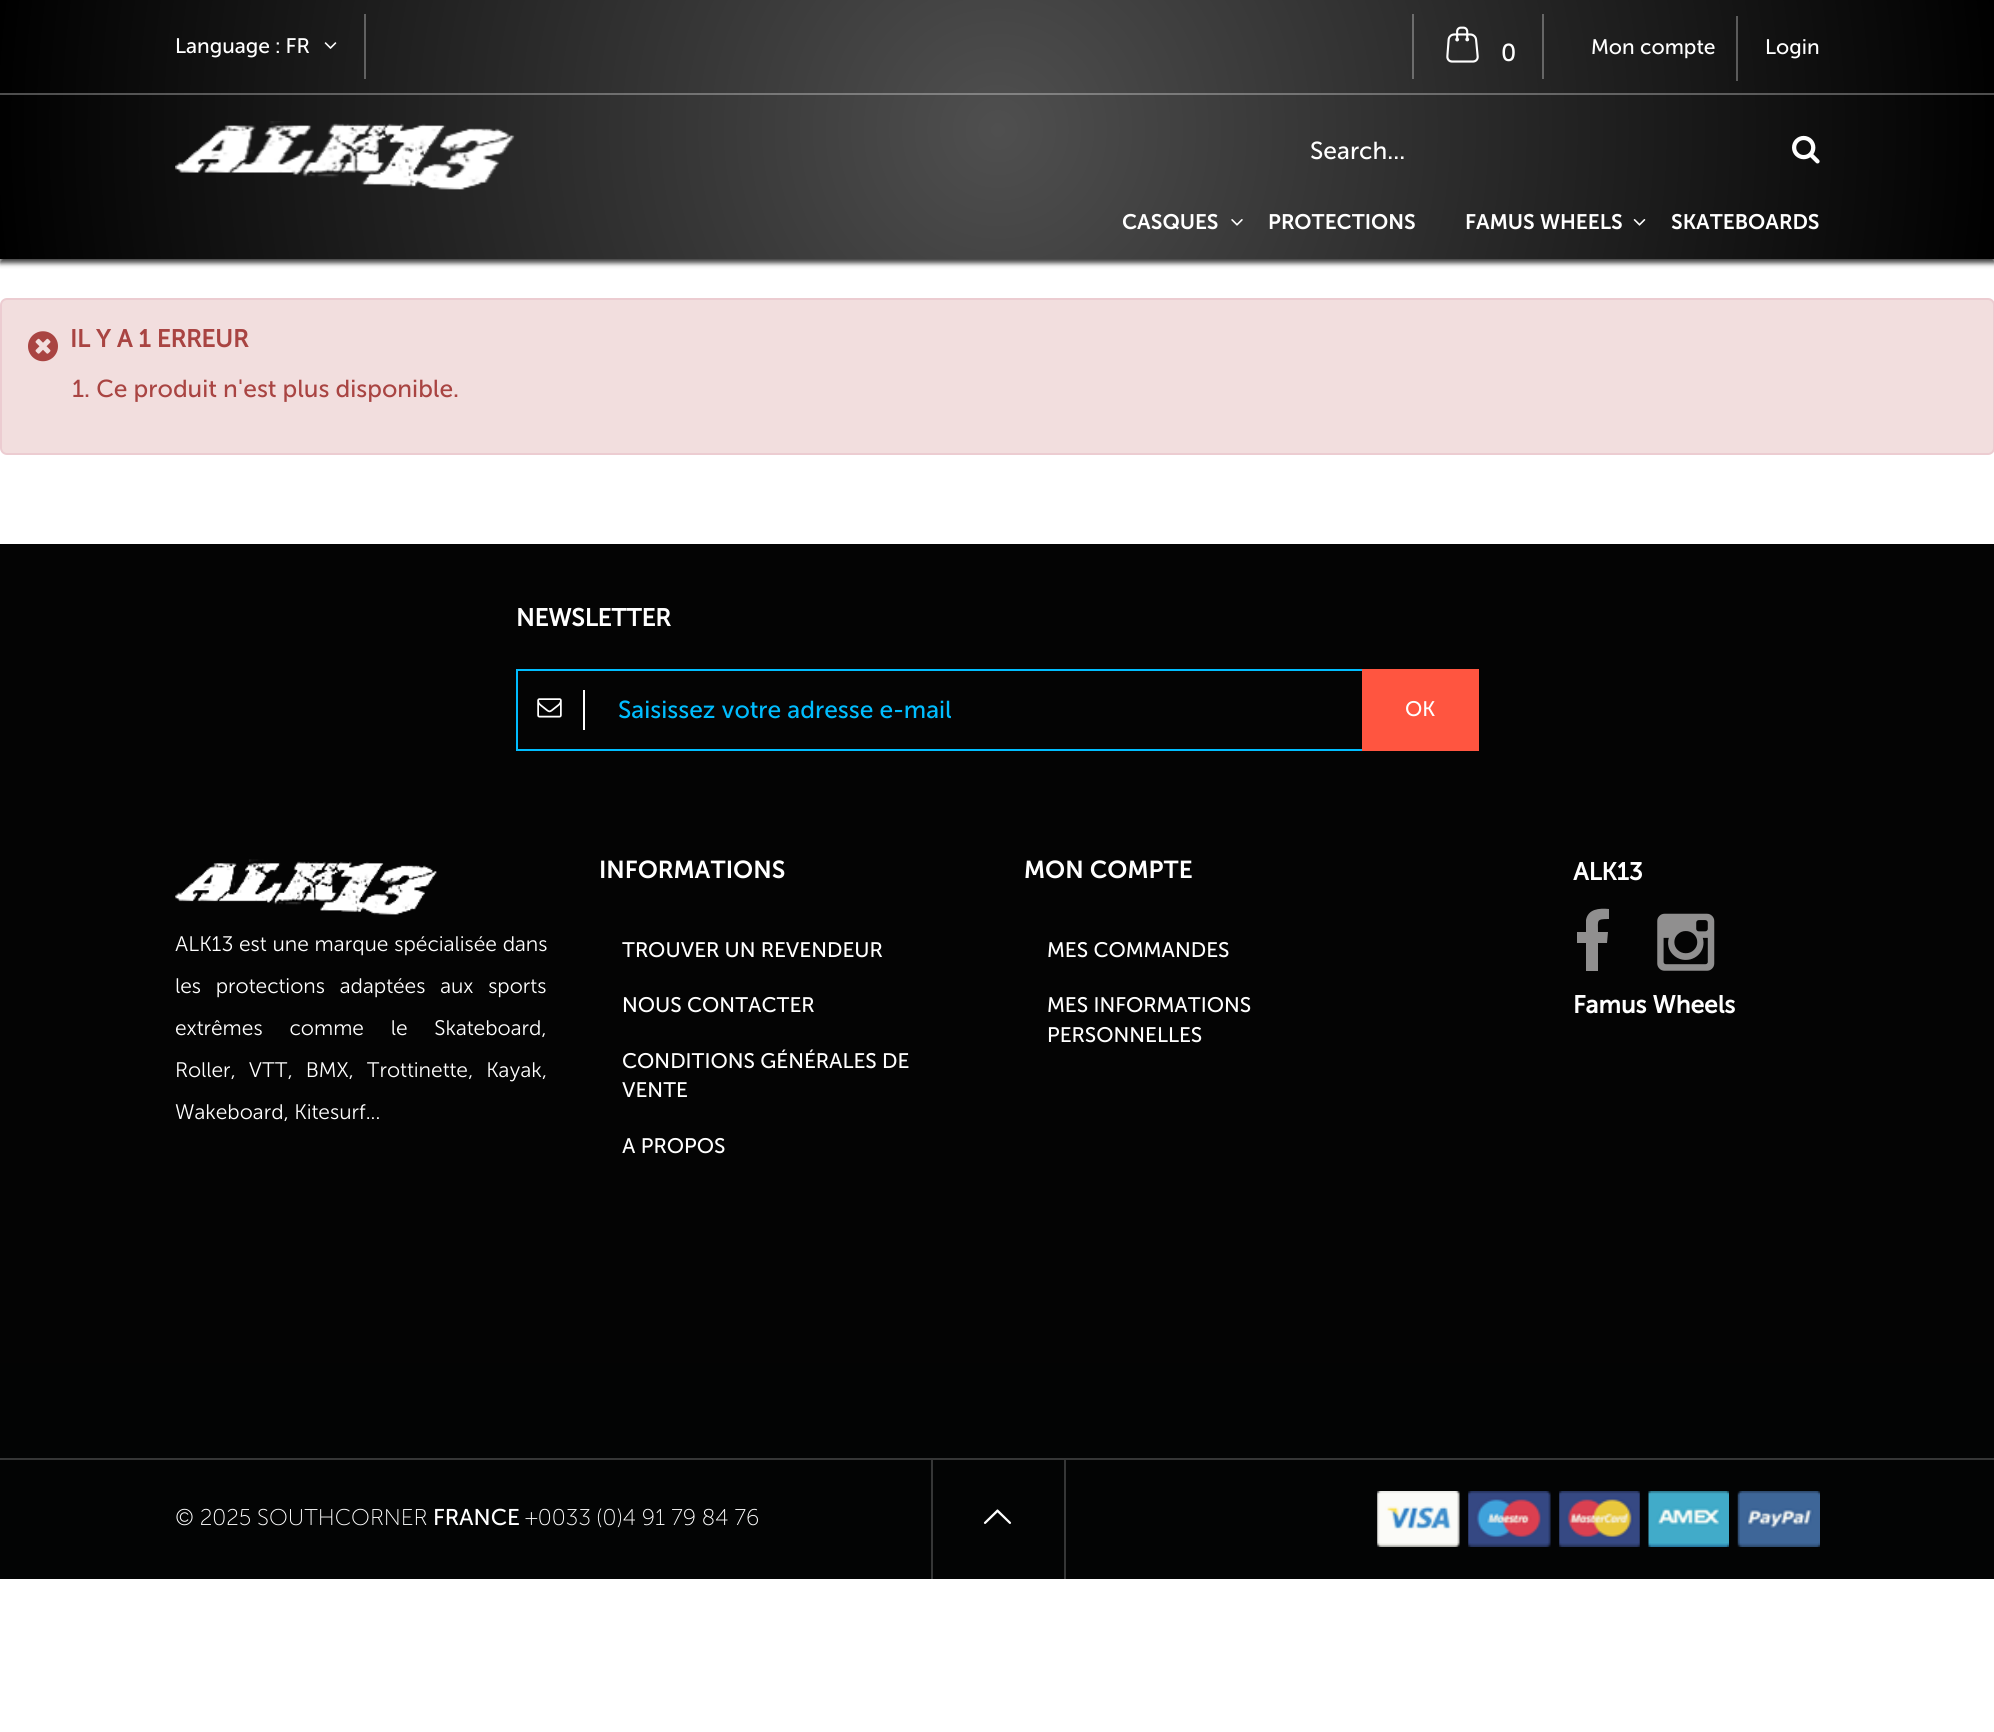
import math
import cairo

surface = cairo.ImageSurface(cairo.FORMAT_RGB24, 1994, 1732)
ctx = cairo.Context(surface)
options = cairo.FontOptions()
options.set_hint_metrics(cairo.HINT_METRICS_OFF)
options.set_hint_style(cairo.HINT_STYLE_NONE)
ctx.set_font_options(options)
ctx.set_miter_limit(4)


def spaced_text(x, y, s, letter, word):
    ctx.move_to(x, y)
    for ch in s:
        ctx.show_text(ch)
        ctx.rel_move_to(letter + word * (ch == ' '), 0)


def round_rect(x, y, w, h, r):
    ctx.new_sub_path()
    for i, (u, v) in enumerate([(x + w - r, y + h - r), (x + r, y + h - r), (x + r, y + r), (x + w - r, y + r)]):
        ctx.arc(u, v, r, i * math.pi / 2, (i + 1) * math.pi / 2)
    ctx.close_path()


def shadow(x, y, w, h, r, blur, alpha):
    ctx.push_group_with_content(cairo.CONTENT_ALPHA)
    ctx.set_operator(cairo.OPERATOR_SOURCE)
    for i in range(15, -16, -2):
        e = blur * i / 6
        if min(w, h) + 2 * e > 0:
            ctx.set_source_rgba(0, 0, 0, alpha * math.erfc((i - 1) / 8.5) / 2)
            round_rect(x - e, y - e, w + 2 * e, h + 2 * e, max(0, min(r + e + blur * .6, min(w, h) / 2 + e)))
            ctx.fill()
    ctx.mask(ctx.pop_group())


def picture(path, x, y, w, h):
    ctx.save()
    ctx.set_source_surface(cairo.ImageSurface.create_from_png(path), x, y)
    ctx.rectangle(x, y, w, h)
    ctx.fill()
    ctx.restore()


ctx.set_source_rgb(1, 1, 1)
ctx.paint()
ctx.set_source_rgb(0, 0, 0)
shadow(0, 4, 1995, 259, 0, 2.5, 0.75)
gradient = cairo.RadialGradient(998, 130, 0, 998, 130, 1006)
gradient.add_color_stop_rgba(0, 0.31, 0.31, 0.31, 1)
gradient.add_color_stop_rgba(1, 0, 0, 0, 1)
ctx.set_source(gradient)
ctx.rectangle(0, 0, 1994, 259)
ctx.fill()
gradient = cairo.RadialGradient(998, 130, 0, 998, 130, 1006)
gradient.add_color_stop_rgba(0, 0.518, 0.518, 0.518, 1)
gradient.add_color_stop_rgba(1, 0.302, 0.302, 0.302, 1)
ctx.set_source(gradient)
ctx.rectangle(0, 93, 1994, 2)
ctx.fill()
ctx.set_source_rgb(0.38, 0.38, 0.38)
ctx.rectangle(364, 14, 2, 65)
ctx.fill()
ctx.select_font_face("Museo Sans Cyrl")
ctx.set_font_size(21)
ctx.set_source_rgb(1, 1, 1)
ctx.move_to(175, 53)
ctx.show_text("Language : FR")
picture("img1.png", 324, 42, 13, 7)
ctx.set_source_rgb(0.4, 0.4, 0.4)
ctx.rectangle(1542, 14, 2, 65)
ctx.fill()
ctx.set_source_rgb(0.427, 0.427, 0.427)
ctx.rectangle(1412, 14, 2, 65)
ctx.fill()
picture("img2.png", 1446, 26, 33, 37)
ctx.set_font_size(24.5)
ctx.set_source_rgb(1, 1, 1)
ctx.move_to(1501, 61)
ctx.show_text("0")
ctx.set_source_rgb(0.357, 0.357, 0.357)
ctx.rectangle(1736, 16, 2, 65)
ctx.fill()
ctx.set_font_size(21)
ctx.set_source_rgb(1, 1, 1)
ctx.move_to(1591, 54)
ctx.show_text("Mon compte")
ctx.move_to(1765, 54)
ctx.show_text("Login")
picture("img3.png", 175, 121, 340, 69)
ctx.set_font_size(24.5)
ctx.move_to(1310, 159)
ctx.show_text("Search...")
picture("img4.png", 1792, 135, 28, 29)
ctx.select_font_face("Museo Sans Cyrl SemiBold")
ctx.set_font_size(21)
ctx.move_to(1122, 229)
ctx.show_text("CASQUES")
picture("img5.png", 1231, 219, 12, 7)
ctx.move_to(1268, 229)
ctx.show_text("PROTECTIONS")
ctx.move_to(1465, 229)
ctx.show_text("FAMUS WHEELS")
picture("img6.png", 1633, 219, 13, 7)
ctx.move_to(1671, 229)
ctx.show_text("SKATEBOARDS")
ctx.set_source_rgb(0.949, 0.871, 0.871)
round_rect(1, 299, 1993, 155, 6)
ctx.fill_preserve()
ctx.set_source_rgb(0.922, 0.8, 0.82)
ctx.stroke()
picture("img7.png", 28, 331, 30, 31)
ctx.select_font_face("Museo Sans Cyrl", cairo.FONT_SLANT_NORMAL, cairo.FONT_WEIGHT_BOLD)
ctx.set_font_size(24.5)
ctx.set_source_rgb(0.663, 0.267, 0.259)
ctx.move_to(70, 347)
ctx.show_text("IL Y A 1 ERREUR")
ctx.select_font_face("Museo Sans Cyrl")
ctx.move_to(72, 397)
ctx.show_text("1. Ce produit n'est plus disponible.")
ctx.set_source_rgb(0.016, 0.016, 0.016)
ctx.rectangle(0, 544, 1994, 819)
ctx.fill()
ctx.select_font_face("Museo Sans Cyrl", cairo.FONT_SLANT_NORMAL, cairo.FONT_WEIGHT_BOLD)
ctx.set_source_rgb(1, 1, 1)
ctx.move_to(516, 626)
ctx.show_text("NEWSLETTER")
ctx.rectangle(517, 670, 961, 80)
ctx.set_source_rgb(0, 0.741, 1)
ctx.stroke()
ctx.set_source_rgb(1, 1, 1)
ctx.rectangle(583, 690, 2, 40)
ctx.fill()
picture("img8.png", 537, 698, 25, 20)
ctx.select_font_face("Museo Sans Cyrl")
ctx.set_source_rgb(0, 0.741, 1)
ctx.move_to(618, 718)
ctx.show_text("Saisissez votre adresse e-mail")
ctx.set_source_rgb(1, 0.333, 0.251)
ctx.rectangle(1362, 669, 117, 82)
ctx.fill()
ctx.set_font_size(21)
ctx.set_source_rgb(1, 1, 1)
ctx.move_to(1405, 716)
ctx.show_text("OK")
picture("img9.png", 175, 859, 262, 56)
ctx.select_font_face("Museo Sans Cyrl Light")
spaced_text(175, 951, "ALK13 est une marque spécialisée dans", 0, 0.5)
spaced_text(175, 993, "les protections adaptées aux sports", 0, 9.5)
spaced_text(175, 1035, "extrêmes comme le Skateboard,", 0, 21.5)
spaced_text(175, 1077, "Roller, VTT, BMX, Trottinette, Kayak,", 0, 7.5)
ctx.move_to(175, 1119)
ctx.show_text("Wakeboard, Kitesurf...")
ctx.select_font_face("Museo Sans Cyrl SemiBold")
ctx.set_font_size(24.5)
ctx.move_to(599, 878)
ctx.show_text("INFORMATIONS")
ctx.select_font_face("Museo Sans Cyrl")
ctx.set_font_size(21)
ctx.move_to(622, 957)
ctx.show_text("TROUVER UN REVENDEUR")
ctx.move_to(622, 1012)
ctx.show_text("NOUS CONTACTER")
ctx.move_to(622, 1068)
ctx.show_text("CONDITIONS GÉNÉRALES DE")
ctx.move_to(622, 1097)
ctx.show_text("VENTE")
ctx.move_to(622, 1153)
ctx.show_text("A PROPOS")
ctx.select_font_face("Museo Sans Cyrl SemiBold")
ctx.set_font_size(24.5)
ctx.move_to(1024, 878)
ctx.show_text("MON COMPTE")
ctx.select_font_face("Museo Sans Cyrl")
ctx.set_font_size(21)
ctx.move_to(1047, 957)
ctx.show_text("MES COMMANDES")
ctx.move_to(1047, 1012)
ctx.show_text("MES INFORMATIONS")
ctx.move_to(1047, 1042)
ctx.show_text("PERSONNELLES")
ctx.select_font_face("Museo Sans Cyrl", cairo.FONT_SLANT_NORMAL, cairo.FONT_WEIGHT_BOLD)
ctx.set_font_size(24.5)
ctx.move_to(1573, 880)
ctx.show_text("ALK13")
ctx.set_source_rgb(0.565, 0.561, 0.561)
ctx.new_path()
ctx.move_to(1577, 943)
ctx.line_to(1577, 932)
ctx.line_to(1586, 932)
ctx.line_to(1586, 920)
ctx.curve_to(1588, 909, 1599, 908, 1609, 909)
ctx.line_to(1609, 919)
ctx.curve_to(1596, 919, 1598, 920, 1598, 932)
ctx.line_to(1608, 932)
ctx.line_to(1607, 943)
ctx.line_to(1598, 943)
ctx.line_to(1598, 971)
ctx.line_to(1586, 971)
ctx.line_to(1586, 943)
ctx.close_path()
ctx.fill()
picture("img10.png", 1657, 913, 58, 58)
ctx.set_source_rgb(1, 1, 1)
ctx.move_to(1573, 1013)
ctx.show_text("Famus Wheels")
ctx.set_source_rgb(0.012, 0.016, 0.016)
ctx.rectangle(0, 1363, 1994, 216)
ctx.fill()
ctx.set_source_rgb(0.208, 0.212, 0.212)
ctx.rectangle(0, 1458, 1994, 2)
ctx.fill()
ctx.select_font_face("Museo Sans Cyrl ExtraLight")
ctx.set_font_size(22.75)
ctx.set_source_rgb(1, 1, 1)
ctx.move_to(175, 1525)
ctx.show_text("© 2025 SOUTHCORNER")
ctx.select_font_face("Museo Sans Cyrl")
ctx.move_to(433, 1525)
ctx.show_text("FRANCE")
ctx.select_font_face("Museo Sans Cyrl ExtraLight")
ctx.move_to(525, 1525)
ctx.show_text("+0033 (0)4 91 79 84 76")
picture("img11.png", 1377, 1491, 83, 56)
picture("img12.png", 1468, 1491, 83, 56)
picture("img13.png", 1559, 1491, 81, 56)
picture("img14.png", 1648, 1491, 81, 56)
picture("img15.png", 1737, 1491, 83, 56)
ctx.set_source_rgb(0.208, 0.212, 0.212)
ctx.rectangle(1064, 1460, 2, 119)
ctx.fill()
ctx.rectangle(931, 1460, 2, 119)
ctx.fill()
picture("img16.png", 983, 1509, 29, 15)
surface.write_to_png("page.png")
